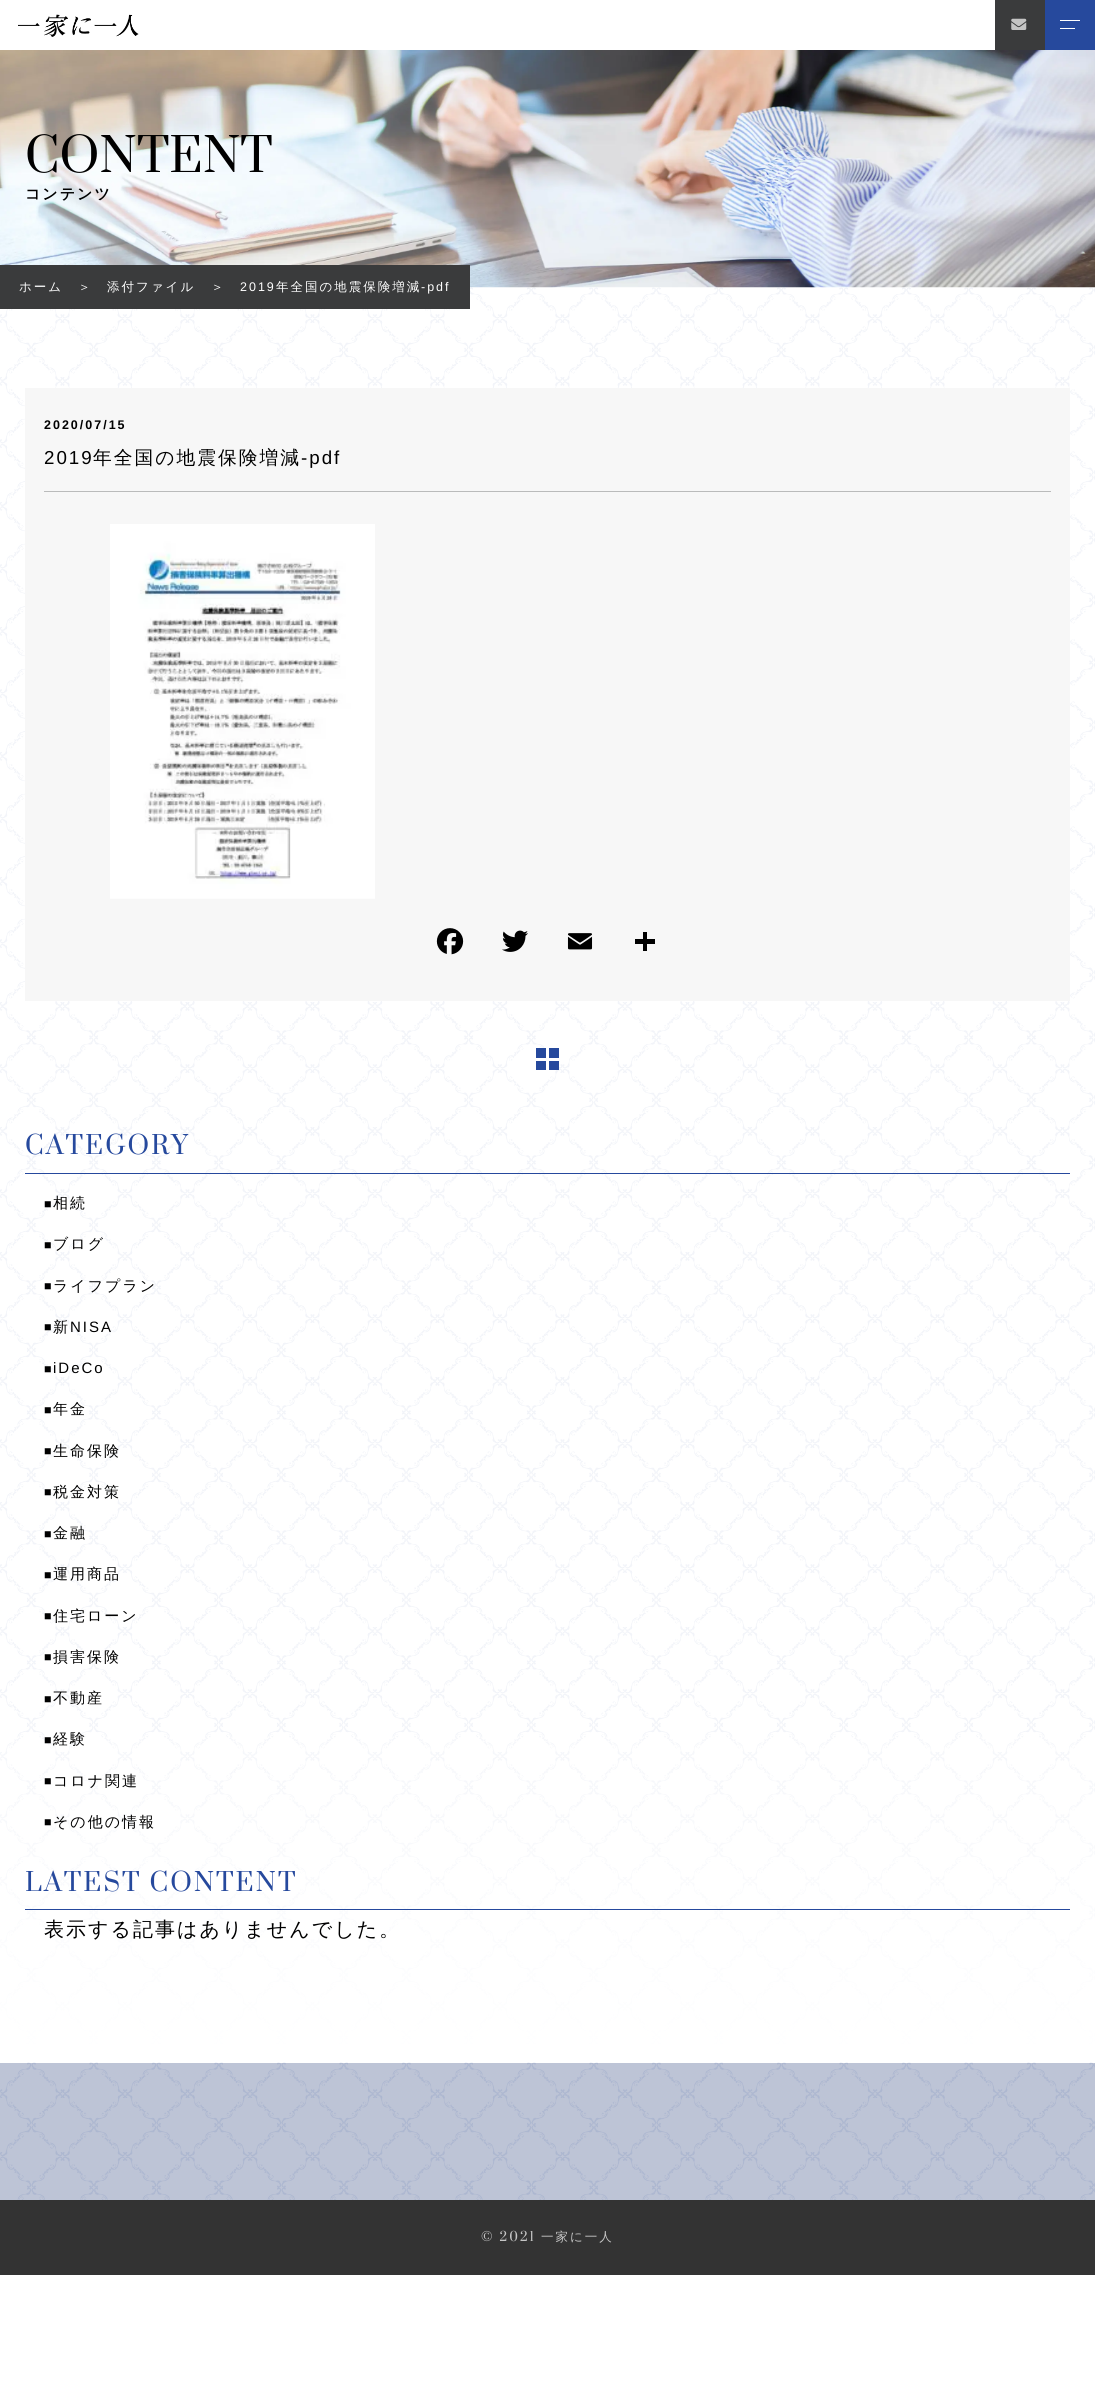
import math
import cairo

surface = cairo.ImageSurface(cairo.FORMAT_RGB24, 1095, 2393)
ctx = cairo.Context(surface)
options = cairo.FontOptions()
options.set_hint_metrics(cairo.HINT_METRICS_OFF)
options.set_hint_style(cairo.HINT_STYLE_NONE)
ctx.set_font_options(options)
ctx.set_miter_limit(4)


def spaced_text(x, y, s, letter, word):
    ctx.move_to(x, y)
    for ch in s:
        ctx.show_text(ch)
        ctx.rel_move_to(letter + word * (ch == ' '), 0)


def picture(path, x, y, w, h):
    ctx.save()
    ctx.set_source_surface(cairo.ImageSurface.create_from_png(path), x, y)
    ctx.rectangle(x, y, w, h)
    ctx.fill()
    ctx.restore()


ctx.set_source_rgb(1, 1, 1)
ctx.paint()
picture("img1.png", 18, 14, 121, 23)
ctx.set_source_rgb(0.227, 0.231, 0.235)
ctx.rectangle(995, 0, 50, 50)
ctx.fill()
picture("img2.png", 1011, 18, 16, 12)
ctx.set_source_rgb(0.149, 0.286, 0.616)
ctx.rectangle(1045, 0, 50, 50)
ctx.fill()
ctx.set_source_rgb(1, 1, 1)
ctx.rectangle(1060, 20, 20, 1)
ctx.fill()
ctx.rectangle(1060, 28, 15, 1)
ctx.fill()
picture("img3.png", 0, 50, 1095, 238)
ctx.select_font_face("Prata")
ctx.set_font_size(46.25)
ctx.set_source_rgb(0, 0, 0)
ctx.move_to(25, 172)
ctx.show_text("CONTENT")
ctx.select_font_face("WenQuanYi Zen Hei", cairo.FONT_SLANT_NORMAL, cairo.FONT_WEIGHT_BOLD)
ctx.set_font_size(15)
spaced_text(25, 199, "コンテンツ", 2, 0)
picture("img4.png", 0, 287, 1095, 1774)
ctx.set_source_rgb(0.227, 0.231, 0.235)
ctx.rectangle(0, 265, 470, 44)
ctx.fill()
ctx.select_font_face("WenQuanYi Zen Hei Medium")
ctx.set_font_size(12.5)
ctx.set_source_rgb(1, 1, 1)
spaced_text(19, 291, "ホーム", 2, 0)
spaced_text(78, 291, "＞", 2, 0)
spaced_text(107, 291, "添付ファイル", 2, 0)
spaced_text(211, 291, "＞", 2, 0)
ctx.select_font_face("Liberation Sans")
spaced_text(240, 291, "2019", 2, 0)
ctx.select_font_face("WenQuanYi Zen Hei Medium")
spaced_text(276, 291, "年全国の地震保険増減", 2, 0)
ctx.select_font_face("Liberation Sans")
spaced_text(421, 291, "-pdf", 2, 0)
ctx.set_source_rgb(0.965, 0.965, 0.965)
ctx.rectangle(25, 388, 1045, 613)
ctx.fill()
ctx.select_font_face("Liberation Sans", cairo.FONT_SLANT_NORMAL, cairo.FONT_WEIGHT_BOLD)
ctx.set_source_rgb(0, 0, 0)
spaced_text(44, 429, "2020/07/15", 2, 0)
ctx.set_source_rgb(0.729, 0.733, 0.733)
ctx.rectangle(44, 491, 1007, 1)
ctx.fill()
ctx.select_font_face("Liberation Sans")
ctx.set_font_size(18.75)
ctx.set_source_rgb(0, 0, 0)
spaced_text(44, 464, "2019", 2, 0)
ctx.select_font_face("WenQuanYi Zen Hei Medium")
spaced_text(93, 464, "年全国の地震保険増減", 2, 0)
ctx.select_font_face("Liberation Sans")
spaced_text(301, 464, "-pdf", 2, 0)
picture("img5.png", 110, 524, 265, 375)
picture("img6.png", 436, 928, 28, 27)
picture("img7.png", 502, 930, 26, 22)
picture("img8.png", 567, 933, 26, 17)
ctx.rectangle(643, 932, 4, 19)
ctx.fill()
ctx.rectangle(635, 939, 20, 5)
ctx.fill()
ctx.set_source_rgb(0.149, 0.286, 0.616)
ctx.rectangle(536, 1048, 23, 22)
ctx.fill()
ctx.set_source_rgb(1, 1, 1)
ctx.rectangle(546, 1048, 3, 22)
ctx.fill()
ctx.rectangle(536, 1058, 23, 3)
ctx.fill()
ctx.set_source_rgb(0.149, 0.286, 0.616)
ctx.rectangle(25, 1173, 1045, 1)
ctx.fill()
ctx.select_font_face("Prata")
ctx.set_font_size(25)
spaced_text(25, 1154, "CATEGORY", 2, 0)
ctx.select_font_face("Liberation Sans")
ctx.set_font_size(12.5)
ctx.set_source_rgb(0, 0, 0)
spaced_text(44, 1208, "■", 2, 0)
ctx.select_font_face("WenQuanYi Zen Hei Medium")
ctx.set_font_size(15)
spaced_text(53, 1208, "相続", 2, 0)
ctx.select_font_face("Liberation Sans")
ctx.set_font_size(12.5)
spaced_text(44, 1249, "■", 2, 0)
ctx.select_font_face("WenQuanYi Zen Hei Medium")
ctx.set_font_size(15)
spaced_text(53, 1249, "ブログ", 2, 0)
ctx.select_font_face("Liberation Sans")
ctx.set_font_size(12.5)
spaced_text(44, 1290, "■", 2, 0)
ctx.select_font_face("WenQuanYi Zen Hei Medium")
ctx.set_font_size(15)
spaced_text(53, 1291, "ライフプラン", 2, 0)
ctx.select_font_face("Liberation Sans")
ctx.set_font_size(12.5)
spaced_text(44, 1331, "■", 2, 0)
ctx.select_font_face("WenQuanYi Zen Hei Medium")
ctx.set_font_size(15)
spaced_text(53, 1332, "新", 2, 0)
ctx.select_font_face("Liberation Sans")
spaced_text(70, 1332, "NISA", 2, 0)
ctx.set_font_size(12.5)
spaced_text(44, 1373, "■", 2, 0)
ctx.set_font_size(15)
spaced_text(53, 1373, "iDeCo", 2, 0)
ctx.set_font_size(12.5)
spaced_text(44, 1414, "■", 2, 0)
ctx.select_font_face("WenQuanYi Zen Hei Medium")
ctx.set_font_size(15)
spaced_text(53, 1414, "年金", 2, 0)
ctx.select_font_face("Liberation Sans")
ctx.set_font_size(12.5)
spaced_text(44, 1455, "■", 2, 0)
ctx.select_font_face("WenQuanYi Zen Hei Medium")
ctx.set_font_size(15)
spaced_text(53, 1456, "生命保険", 2, 0)
ctx.select_font_face("Liberation Sans")
ctx.set_font_size(12.5)
spaced_text(44, 1496, "■", 2, 0)
ctx.select_font_face("WenQuanYi Zen Hei Medium")
ctx.set_font_size(15)
spaced_text(53, 1497, "税金対策", 2, 0)
ctx.select_font_face("Liberation Sans")
ctx.set_font_size(12.5)
spaced_text(44, 1538, "■", 2, 0)
ctx.select_font_face("WenQuanYi Zen Hei Medium")
ctx.set_font_size(15)
spaced_text(53, 1538, "金融", 2, 0)
ctx.select_font_face("Liberation Sans")
ctx.set_font_size(12.5)
spaced_text(44, 1579, "■", 2, 0)
ctx.select_font_face("WenQuanYi Zen Hei Medium")
ctx.set_font_size(15)
spaced_text(53, 1579, "運用商品", 2, 0)
ctx.select_font_face("Liberation Sans")
ctx.set_font_size(12.5)
spaced_text(44, 1620, "■", 2, 0)
ctx.select_font_face("WenQuanYi Zen Hei Medium")
ctx.set_font_size(15)
spaced_text(53, 1621, "住宅ローン", 2, 0)
ctx.select_font_face("Liberation Sans")
ctx.set_font_size(12.5)
spaced_text(44, 1661, "■", 2, 0)
ctx.select_font_face("WenQuanYi Zen Hei Medium")
ctx.set_font_size(15)
spaced_text(53, 1662, "損害保険", 2, 0)
ctx.select_font_face("Liberation Sans")
ctx.set_font_size(12.5)
spaced_text(44, 1703, "■", 2, 0)
ctx.select_font_face("WenQuanYi Zen Hei Medium")
ctx.set_font_size(15)
spaced_text(53, 1703, "不動産", 2, 0)
gradient = cairo.LinearGradient(548, 1650, 548, 2063)
gradient.add_color_stop_rgba(0, 1, 1, 1, 0)
gradient.add_color_stop_rgba(1, 1, 1, 1, 1)
ctx.set_source(gradient)
ctx.rectangle(0, 1738, 1095, 323)
ctx.fill()
ctx.select_font_face("Liberation Sans")
ctx.set_font_size(12.5)
ctx.set_source_rgb(0, 0, 0)
spaced_text(44, 1744, "■", 2, 0)
ctx.select_font_face("WenQuanYi Zen Hei Medium")
ctx.set_font_size(15)
spaced_text(53, 1744, "経験", 2, 0)
ctx.select_font_face("Liberation Sans")
ctx.set_font_size(12.5)
spaced_text(44, 1785, "■", 2, 0)
ctx.select_font_face("WenQuanYi Zen Hei Medium")
ctx.set_font_size(15)
spaced_text(53, 1786, "コロナ関連", 2, 0)
ctx.select_font_face("Liberation Sans")
ctx.set_font_size(12.5)
spaced_text(44, 1826, "■", 2, 0)
ctx.select_font_face("WenQuanYi Zen Hei Medium")
ctx.set_font_size(15)
spaced_text(53, 1827, "その他の情報", 2, 0)
ctx.set_source_rgb(0.149, 0.286, 0.616)
ctx.rectangle(25, 1909, 1045, 1)
ctx.fill()
ctx.select_font_face("Prata")
ctx.set_font_size(25)
spaced_text(25, 1891, "LATEST CONTENT", 2, 0)
ctx.select_font_face("WenQuanYi Zen Hei Medium")
ctx.set_font_size(20)
ctx.set_source_rgb(0, 0, 0)
spaced_text(44, 1936, "表示する記事はありませんでした。", 2, 0)
ctx.set_source_rgb(0.741, 0.769, 0.839)
ctx.rectangle(0, 2063, 1095, 137)
ctx.fill()
picture("img9.png", 0, 2062, 1095, 138)
ctx.set_source_rgb(0.2, 0.2, 0.2)
ctx.rectangle(0, 2200, 1095, 75)
ctx.fill()
ctx.select_font_face("Prata")
ctx.set_font_size(12.5)
ctx.set_source_rgb(0.773, 0.773, 0.773)
spaced_text(481, 2241, "© 2021", 2, 0)
ctx.select_font_face("WenQuanYi Zen Hei Medium")
spaced_text(541, 2241, "一家に一人", 2, 0)
surface.write_to_png("page.png")
